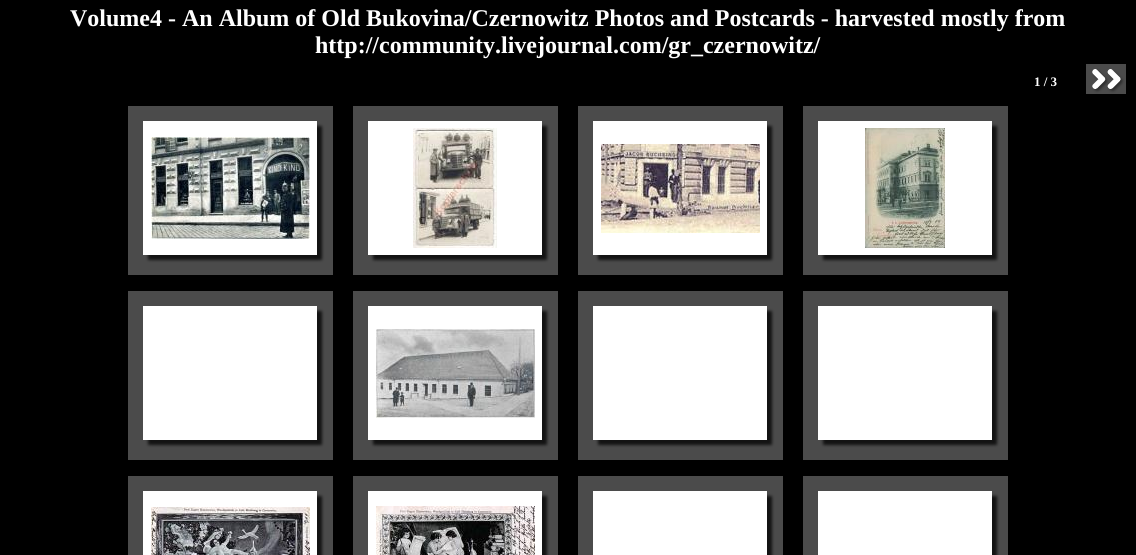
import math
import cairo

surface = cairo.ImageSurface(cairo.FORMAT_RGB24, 1136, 555)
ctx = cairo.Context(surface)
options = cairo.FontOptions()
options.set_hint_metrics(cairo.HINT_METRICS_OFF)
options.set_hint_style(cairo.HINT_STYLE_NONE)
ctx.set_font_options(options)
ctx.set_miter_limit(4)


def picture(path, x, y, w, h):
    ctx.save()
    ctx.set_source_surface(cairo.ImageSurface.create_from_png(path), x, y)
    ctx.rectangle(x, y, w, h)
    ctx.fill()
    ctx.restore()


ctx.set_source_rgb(0, 0, 0)
ctx.paint()
ctx.select_font_face("Liberation Serif", cairo.FONT_SLANT_NORMAL, cairo.FONT_WEIGHT_BOLD)
ctx.set_font_size(24)
ctx.set_source_rgb(1, 1, 1)
ctx.move_to(70, 26)
ctx.show_text("Volume4 - An Album of Old Bukovina/Czernowitz Photos and Postcards - harvested mostly from")
ctx.move_to(315, 53)
ctx.show_text("http://community.livejournal.com/gr_czernowitz/")
ctx.set_font_size(13)
ctx.move_to(1034, 86)
ctx.show_text("1 / 3")
picture("img1.png", 1086, 64, 40, 30)
picture("img2.png", 128, 106, 205, 21)
picture("img3.png", 128, 127, 21, 122)
ctx.rectangle(149, 127, 162, 122)
ctx.fill()
picture("img4.png", 151, 137, 159, 102)
picture("img5.png", 311, 127, 22, 122)
picture("img6.png", 128, 249, 205, 26)
picture("img2.png", 353, 106, 205, 21)
picture("img3.png", 353, 127, 21, 122)
ctx.rectangle(374, 127, 162, 122)
ctx.fill()
picture("img7.png", 413, 128, 84, 120)
picture("img5.png", 536, 127, 22, 122)
picture("img6.png", 353, 249, 205, 26)
picture("img2.png", 578, 106, 205, 21)
picture("img3.png", 578, 127, 21, 122)
ctx.rectangle(599, 127, 162, 122)
ctx.fill()
picture("img8.png", 601, 144, 159, 89)
picture("img5.png", 761, 127, 22, 122)
picture("img6.png", 578, 249, 205, 26)
picture("img2.png", 803, 106, 205, 21)
picture("img3.png", 803, 127, 21, 122)
ctx.rectangle(824, 127, 162, 122)
ctx.fill()
picture("img9.png", 865, 128, 80, 120)
picture("img5.png", 986, 127, 22, 122)
picture("img6.png", 803, 249, 205, 26)
picture("img2.png", 128, 291, 205, 21)
picture("img3.png", 128, 312, 21, 122)
ctx.rectangle(149, 312, 162, 122)
ctx.fill()
picture("img5.png", 311, 312, 22, 122)
picture("img6.png", 128, 434, 205, 26)
picture("img2.png", 353, 291, 205, 21)
picture("img3.png", 353, 312, 21, 122)
ctx.rectangle(374, 312, 162, 122)
ctx.fill()
picture("img10.png", 376, 329, 159, 89)
picture("img5.png", 536, 312, 22, 122)
picture("img6.png", 353, 434, 205, 26)
picture("img2.png", 578, 291, 205, 21)
picture("img3.png", 578, 312, 21, 122)
ctx.rectangle(599, 312, 162, 122)
ctx.fill()
picture("img5.png", 761, 312, 22, 122)
picture("img6.png", 578, 434, 205, 26)
picture("img2.png", 803, 291, 205, 21)
picture("img3.png", 803, 312, 21, 122)
ctx.rectangle(824, 312, 162, 122)
ctx.fill()
picture("img5.png", 986, 312, 22, 122)
picture("img6.png", 803, 434, 205, 26)
picture("img2.png", 128, 476, 205, 21)
picture("img11.png", 128, 497, 21, 58)
ctx.rectangle(149, 497, 162, 58)
ctx.fill()
picture("img12.png", 151, 507, 159, 48)
picture("img13.png", 311, 497, 22, 58)
picture("img2.png", 353, 476, 205, 21)
picture("img11.png", 353, 497, 21, 58)
ctx.rectangle(374, 497, 162, 58)
ctx.fill()
picture("img14.png", 376, 506, 159, 49)
picture("img13.png", 536, 497, 22, 58)
picture("img2.png", 578, 476, 205, 21)
picture("img11.png", 578, 497, 21, 58)
ctx.rectangle(599, 497, 162, 58)
ctx.fill()
picture("img13.png", 761, 497, 22, 58)
picture("img2.png", 803, 476, 205, 21)
picture("img11.png", 803, 497, 21, 58)
ctx.rectangle(824, 497, 162, 58)
ctx.fill()
picture("img13.png", 986, 497, 22, 58)
surface.write_to_png("page.png")
